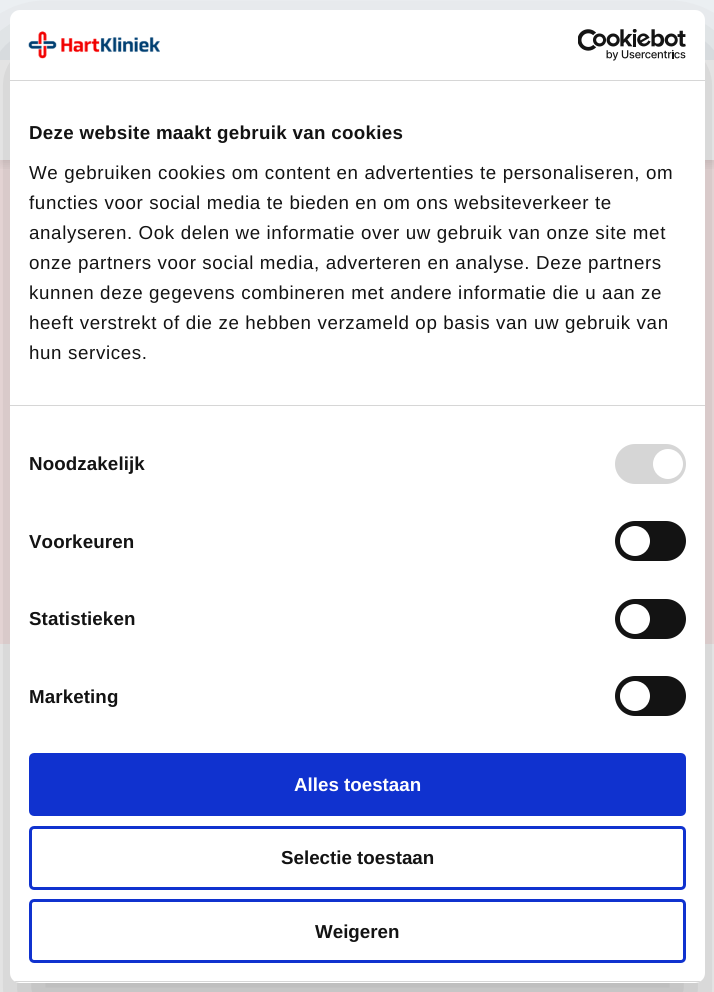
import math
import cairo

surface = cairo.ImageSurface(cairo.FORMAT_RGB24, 714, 992)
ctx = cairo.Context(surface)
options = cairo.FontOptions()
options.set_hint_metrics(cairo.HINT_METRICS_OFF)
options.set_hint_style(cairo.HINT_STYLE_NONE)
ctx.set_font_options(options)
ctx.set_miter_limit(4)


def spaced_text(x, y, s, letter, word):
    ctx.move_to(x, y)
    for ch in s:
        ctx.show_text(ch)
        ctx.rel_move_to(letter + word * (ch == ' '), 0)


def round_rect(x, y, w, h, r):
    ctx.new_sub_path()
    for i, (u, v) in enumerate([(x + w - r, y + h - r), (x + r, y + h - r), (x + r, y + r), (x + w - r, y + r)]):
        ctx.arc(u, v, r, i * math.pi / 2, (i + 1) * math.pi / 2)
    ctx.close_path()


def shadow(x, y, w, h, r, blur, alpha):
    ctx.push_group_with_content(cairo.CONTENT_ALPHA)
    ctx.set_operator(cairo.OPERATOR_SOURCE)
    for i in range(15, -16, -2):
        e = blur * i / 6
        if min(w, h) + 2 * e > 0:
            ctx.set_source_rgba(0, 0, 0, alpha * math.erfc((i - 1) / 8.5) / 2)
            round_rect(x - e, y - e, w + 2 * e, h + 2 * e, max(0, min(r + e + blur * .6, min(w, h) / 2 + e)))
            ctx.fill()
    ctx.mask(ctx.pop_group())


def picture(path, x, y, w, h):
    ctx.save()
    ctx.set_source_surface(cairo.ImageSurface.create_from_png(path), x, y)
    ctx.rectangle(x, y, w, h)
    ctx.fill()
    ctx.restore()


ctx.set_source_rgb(1, 1, 1)
ctx.paint()
ctx.set_source_rgb(1, 0.929, 0.929)
ctx.rectangle(0, 160, 714, 484)
ctx.fill()
ctx.save()
ctx.rectangle(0, 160, 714, 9)
ctx.clip()
ctx.set_source_rgb(0, 0, 0)
shadow(0, 4, 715, 160, 0, 6, 0.1)
ctx.restore()
ctx.set_source_rgb(0.949, 0.961, 0.973)
ctx.rectangle(0, 0, 714, 60)
ctx.fill()
ctx.set_source_rgb(0, 0, 0)
shadow(10, 50, 695, 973, 10, 42.5, 0.3)
ctx.set_source_rgb(1, 1, 1)
round_rect(10, 10, 695, 973, 10)
ctx.fill()
ctx.set_source_rgb(0.839, 0.839, 0.839)
ctx.rectangle(10, 80, 695, 1)
ctx.fill()
picture("img1.png", 28, 31, 132, 28)
picture("img2.png", 578, 29, 108, 32)
ctx.rectangle(10, 405, 695, 1)
ctx.fill()
ctx.select_font_face("Liberation Sans", cairo.FONT_SLANT_NORMAL, cairo.FONT_WEIGHT_BOLD)
ctx.set_font_size(18.75)
ctx.set_source_rgb(0.078, 0.078, 0.078)
spaced_text(29, 139, "Deze website maakt gebruik van cookies", 0.3, 0)
ctx.select_font_face("Liberation Sans")
spaced_text(29, 179, "We gebruiken cookies om content en advertenties te personaliseren, om", 0.62, 0)
spaced_text(29, 209, "functies voor social media te bieden en om ons websiteverkeer te", 0.62, 0)
spaced_text(29, 239, "analyseren. Ook delen we informatie over uw gebruik van onze site met", 0.62, 0)
spaced_text(29, 269, "onze partners voor social media, adverteren en analyse. Deze partners", 0.62, 0)
spaced_text(29, 299, "kunnen deze gegevens combineren met andere informatie die u aan ze", 0.62, 0)
spaced_text(29, 329, "heeft verstrekt of die ze hebben verzameld op basis van uw gebruik van", 0.62, 0)
spaced_text(29, 359, "hun services.", 0.62, 0)
ctx.select_font_face("Liberation Sans", cairo.FONT_SLANT_NORMAL, cairo.FONT_WEIGHT_BOLD)
spaced_text(29, 470, "Noodzakelijk", 0.1, 0)
ctx.set_source_rgb(0.839, 0.839, 0.839)
round_rect(615, 444, 71, 40, 20)
ctx.fill()
ctx.set_source_rgb(1, 1, 1)
ctx.arc(668, 464, 15, 0, 2 * math.pi)
ctx.fill()
ctx.set_source_rgb(0.078, 0.078, 0.078)
spaced_text(29, 548, "Voorkeuren", 0.1, 0)
round_rect(615, 521, 71, 40, 20)
ctx.fill()
ctx.set_source_rgb(1, 1, 1)
ctx.arc(635, 541, 15, 0, 2 * math.pi)
ctx.fill()
ctx.set_source_rgb(0.078, 0.078, 0.078)
spaced_text(29, 625, "Statistieken", 0.1, 0)
round_rect(615, 599, 71, 40, 20)
ctx.fill()
ctx.set_source_rgb(1, 1, 1)
ctx.arc(635, 619, 15, 0, 2 * math.pi)
ctx.fill()
ctx.set_source_rgb(0.078, 0.078, 0.078)
spaced_text(29, 703, "Marketing", 0.1, 0)
round_rect(615, 676, 71, 40, 20)
ctx.fill()
ctx.set_source_rgb(1, 1, 1)
ctx.arc(635, 696, 15, 0, 2 * math.pi)
ctx.fill()
ctx.save()
round_rect(10, 10, 695, 973, 10)
ctx.clip()
ctx.set_source_rgb(0.839, 0.839, 0.839)
ctx.rectangle(10, 981, 695, 1)
ctx.fill()
ctx.restore()
ctx.set_source_rgb(0.063, 0.196, 0.812)
round_rect(30.5, 754.5, 654, 60, 3.5)
ctx.fill_preserve()
ctx.set_line_width(3)
ctx.stroke()
ctx.set_source_rgb(1, 1, 1)
ctx.move_to(294, 791)
ctx.show_text("Alles toestaan")
round_rect(30.5, 827.5, 654, 61, 3.5)
ctx.set_source_rgb(0.063, 0.196, 0.812)
ctx.stroke()
ctx.set_source_rgb(0.078, 0.078, 0.078)
ctx.move_to(281, 864)
ctx.show_text("Selectie toestaan")
round_rect(30.5, 900.5, 654, 61, 3.5)
ctx.set_source_rgb(0.063, 0.196, 0.812)
ctx.stroke()
ctx.set_source_rgb(0.078, 0.078, 0.078)
ctx.move_to(315, 938)
ctx.show_text("Weigeren")
surface.write_to_png("page.png")
